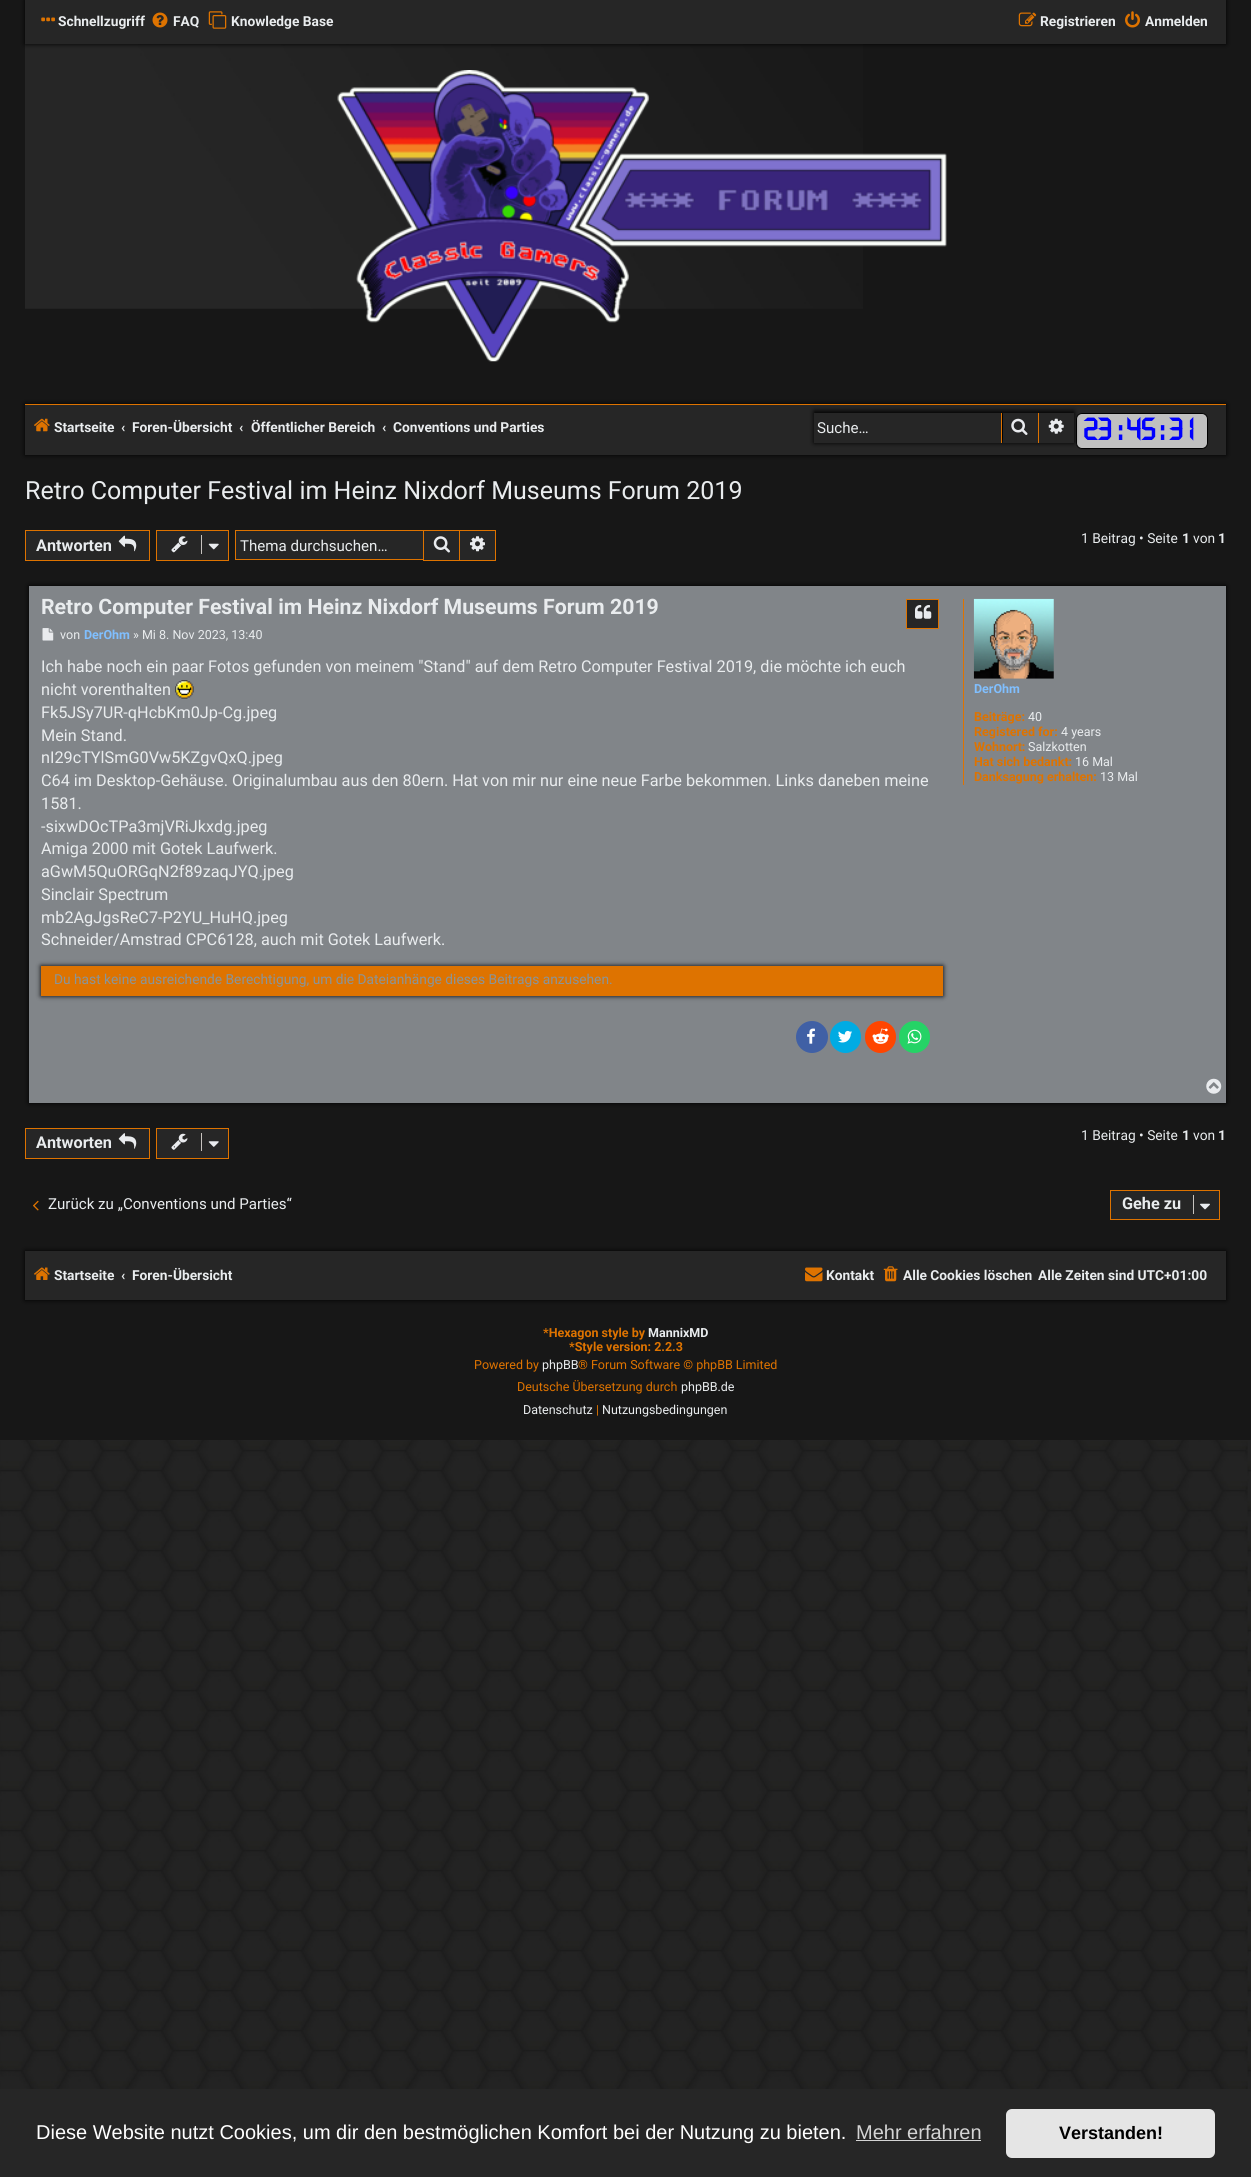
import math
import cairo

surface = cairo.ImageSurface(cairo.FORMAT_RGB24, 1251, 2177)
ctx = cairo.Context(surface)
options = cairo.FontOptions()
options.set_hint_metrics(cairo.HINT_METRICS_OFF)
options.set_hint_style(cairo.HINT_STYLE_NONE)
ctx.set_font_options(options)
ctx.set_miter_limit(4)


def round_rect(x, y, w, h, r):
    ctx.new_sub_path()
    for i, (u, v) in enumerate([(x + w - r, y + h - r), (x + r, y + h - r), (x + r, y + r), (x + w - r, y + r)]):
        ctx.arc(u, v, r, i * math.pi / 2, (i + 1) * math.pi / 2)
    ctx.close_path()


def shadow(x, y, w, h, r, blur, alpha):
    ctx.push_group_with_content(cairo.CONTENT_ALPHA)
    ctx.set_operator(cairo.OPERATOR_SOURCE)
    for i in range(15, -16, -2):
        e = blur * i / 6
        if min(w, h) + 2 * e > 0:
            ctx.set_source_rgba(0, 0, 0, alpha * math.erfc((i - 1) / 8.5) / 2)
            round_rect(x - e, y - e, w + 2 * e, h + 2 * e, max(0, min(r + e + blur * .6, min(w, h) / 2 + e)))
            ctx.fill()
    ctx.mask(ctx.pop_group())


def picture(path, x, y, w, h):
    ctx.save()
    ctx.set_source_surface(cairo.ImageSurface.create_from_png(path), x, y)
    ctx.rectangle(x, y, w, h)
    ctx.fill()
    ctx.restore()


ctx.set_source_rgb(1, 1, 1)
ctx.paint()
picture("img1.png", 0, 1440, 1251, 649)
ctx.set_source_rgb(0.09, 0.09, 0.09)
ctx.rectangle(0, 0, 1251, 1440)
ctx.fill()
picture("img7.png", 25, 44, 838, 265)
ctx.set_source_rgb(0, 0, 0)
shadow(25, 0, 1201, 44, 0, 2.5, 1)
ctx.set_source_rgb(0.149, 0.149, 0.149)
ctx.rectangle(25, 0, 1201, 44)
ctx.fill()
picture("img2.png", 41, 17, 14, 5)
ctx.select_font_face("Roboto", cairo.FONT_SLANT_NORMAL, cairo.FONT_WEIGHT_BOLD)
ctx.set_font_size(13.75)
ctx.set_source_rgb(0.914, 0.922, 0.933)
ctx.move_to(58, 26)
ctx.show_text("Schnellzugriff")
picture("img3.png", 152, 12, 16, 16)
ctx.move_to(173, 26)
ctx.show_text("FAQ")
picture("img4.png", 208, 11, 19, 18)
ctx.move_to(231, 26)
ctx.show_text("Knowledge Base")
picture("img5.png", 1018, 12, 19, 15)
ctx.move_to(1040, 26)
ctx.show_text("Registrieren")
picture("img6.png", 1125, 11, 15, 17)
ctx.move_to(1145, 26)
ctx.show_text("Anmelden")
picture("img8.png", 337, 70, 610, 292)
ctx.set_source_rgb(0, 0, 0)
shadow(25, 404, 1201, 51, 0, 2.5, 1)
ctx.set_source_rgb(0.149, 0.149, 0.149)
ctx.rectangle(25, 405, 1201, 50)
ctx.fill()
ctx.set_source_rgb(0.871, 0.451, 0)
ctx.rectangle(25, 404, 1201, 1)
ctx.fill()
picture("img9.png", 34, 418, 16, 14)
ctx.set_source_rgb(0.914, 0.922, 0.933)
ctx.move_to(54, 432)
ctx.show_text("Startseite")
ctx.move_to(121, 432)
ctx.show_text("‹")
ctx.move_to(132, 432)
ctx.show_text("Foren-Übersicht")
ctx.move_to(239, 432)
ctx.show_text("‹")
ctx.move_to(251, 432)
ctx.show_text("Öffentlicher Bereich")
ctx.move_to(382, 432)
ctx.show_text("‹")
ctx.move_to(393, 432)
ctx.show_text("Conventions und Parties")
ctx.set_source_rgb(0.753, 0.753, 0.753)
round_rect(1076.5, 413.5, 131, 35, 5.5)
ctx.fill_preserve()
ctx.set_source_rgb(0, 0, 0)
ctx.set_line_width(1)
ctx.stroke()
ctx.set_source_rgb(0, 0, 0)
shadow(814, 411, 260, 32, 0, 2.5, 1)
ctx.set_source_rgb(0.149, 0.149, 0.149)
ctx.rectangle(814, 413, 187, 30)
ctx.fill()
ctx.select_font_face("Roboto")
ctx.set_font_size(15.1)
ctx.set_source_rgb(0.914, 0.922, 0.933)
ctx.move_to(817, 433)
ctx.show_text("Suche…")
ctx.set_source_rgb(0.149, 0.149, 0.149)
ctx.rectangle(1003, 413, 35, 30)
ctx.fill()
ctx.set_source_rgb(0.871, 0.451, 0)
ctx.rectangle(1038, 413, 1, 30)
ctx.fill()
ctx.rectangle(1001, 413, 1, 30)
ctx.fill()
picture("img10.png", 1011, 418, 17, 17)
ctx.set_source_rgb(0.149, 0.149, 0.149)
ctx.rectangle(1039, 413, 35, 30)
ctx.fill()
picture("img11.png", 1048, 418, 16, 16)
ctx.select_font_face("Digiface", cairo.FONT_SLANT_NORMAL, cairo.FONT_WEIGHT_BOLD)
ctx.set_font_size(30)
ctx.set_source_rgb(0, 0, 1)
ctx.move_to(1083, 440)
ctx.show_text("23")
ctx.move_to(1118, 440)
ctx.show_text(":")
ctx.move_to(1126, 440)
ctx.show_text("45")
ctx.move_to(1160, 440)
ctx.show_text(":")
ctx.move_to(1169, 440)
ctx.show_text("31")
ctx.select_font_face("Roboto")
ctx.set_font_size(25)
ctx.set_source_rgb(0.914, 0.922, 0.933)
ctx.move_to(25, 499)
ctx.show_text("Retro Computer Festival im Heinz Nixdorf Museums Forum 2019")
ctx.set_source_rgb(0.149, 0.149, 0.149)
ctx.rectangle(25.5, 530.5, 124, 30)
ctx.fill_preserve()
ctx.set_source_rgb(0.871, 0.451, 0)
ctx.stroke()
ctx.select_font_face("Roboto", cairo.FONT_SLANT_NORMAL, cairo.FONT_WEIGHT_BOLD)
ctx.set_font_size(16.25)
ctx.set_source_rgb(0.914, 0.922, 0.933)
ctx.move_to(36, 551)
ctx.show_text("Antworten")
picture("img12.png", 118, 535, 19, 17)
ctx.set_source_rgb(0.149, 0.149, 0.149)
ctx.rectangle(156.5, 530.5, 72, 30)
ctx.fill_preserve()
ctx.set_source_rgb(0.871, 0.451, 0)
ctx.stroke()
picture("img13.png", 171, 536, 17, 17)
ctx.set_source_rgb(0.78, 0.765, 0.749)
ctx.rectangle(201, 535, 1, 19)
ctx.fill()
picture("img14.png", 208, 543, 11, 7)
ctx.set_source_rgb(0.149, 0.149, 0.149)
ctx.rectangle(236, 531, 187, 28)
ctx.fill()
ctx.set_source_rgb(0.871, 0.451, 0)
ctx.rectangle(235, 530, 188, 1)
ctx.fill()
ctx.rectangle(235, 559, 188, 1)
ctx.fill()
ctx.rectangle(235, 530, 1, 30)
ctx.fill()
ctx.select_font_face("Roboto")
ctx.set_font_size(15.1)
ctx.set_source_rgb(0.914, 0.922, 0.933)
ctx.move_to(240, 551)
ctx.show_text("Thema durchsuchen…")
ctx.set_source_rgb(0.149, 0.149, 0.149)
ctx.rectangle(423.5, 530.5, 36, 30)
ctx.fill_preserve()
ctx.set_source_rgb(0.871, 0.451, 0)
ctx.stroke()
picture("img15.png", 433, 536, 17, 17)
ctx.set_source_rgb(0.149, 0.149, 0.149)
ctx.rectangle(460, 531, 35, 29)
ctx.fill()
ctx.set_source_rgb(0.871, 0.451, 0)
ctx.rectangle(460, 530, 36, 1)
ctx.fill()
ctx.rectangle(495, 530, 1, 31)
ctx.fill()
ctx.rectangle(460, 560, 36, 1)
ctx.fill()
picture("img16.png", 470, 536, 15, 16)
ctx.set_font_size(13.75)
ctx.set_source_rgb(0.914, 0.922, 0.933)
ctx.move_to(1081, 543)
ctx.show_text("1 Beitrag • Seite")
ctx.select_font_face("Roboto", cairo.FONT_SLANT_NORMAL, cairo.FONT_WEIGHT_BOLD)
ctx.move_to(1182, 543)
ctx.show_text("1")
ctx.select_font_face("Roboto")
ctx.move_to(1193, 543)
ctx.show_text("von")
ctx.select_font_face("Roboto", cairo.FONT_SLANT_NORMAL, cairo.FONT_WEIGHT_BOLD)
ctx.move_to(1218, 543)
ctx.show_text("1")
ctx.set_source_rgb(0, 0, 0)
shadow(29, 586, 1197, 517, 0, 2.5, 1)
ctx.set_source_rgb(0.506, 0.522, 0.537)
ctx.rectangle(29, 586, 1197, 517)
ctx.fill()
ctx.set_font_size(21.25)
ctx.set_source_rgb(0.914, 0.922, 0.933)
ctx.move_to(41, 614)
ctx.show_text("Retro Computer Festival im Heinz Nixdorf Museums Forum 2019")
ctx.set_source_rgb(0.149, 0.149, 0.149)
ctx.rectangle(906.5, 599.5, 32, 29)
ctx.fill_preserve()
ctx.set_source_rgb(0.871, 0.451, 0)
ctx.stroke()
picture("img17.png", 915, 605, 17, 14)
picture("img18.png", 42, 628, 12, 13)
ctx.select_font_face("Roboto")
ctx.set_font_size(12.5)
ctx.set_source_rgb(0.914, 0.922, 0.933)
ctx.move_to(60, 639)
ctx.show_text("von")
ctx.select_font_face("Roboto", cairo.FONT_SLANT_NORMAL, cairo.FONT_WEIGHT_BOLD)
ctx.set_source_rgb(0.502, 0.749, 1)
ctx.move_to(84, 639)
ctx.show_text("DerOhm")
ctx.select_font_face("Roboto")
ctx.set_source_rgb(0.914, 0.922, 0.933)
ctx.move_to(133, 639)
ctx.show_text("» Mi 8. Nov 2023, 13:40")
ctx.set_font_size(16.25)
ctx.move_to(41, 672)
ctx.show_text("Ich habe noch ein paar Fotos gefunden von meinem \"Stand\" auf dem Retro Computer Festival 2019, die möchte ich euch")
ctx.move_to(41, 695)
ctx.show_text("nicht vorenthalten")
picture("img19.png", 175, 680, 19, 19)
ctx.move_to(41, 718)
ctx.show_text("Fk5JSy7UR-qHcbKm0Jp-Cg.jpeg")
ctx.move_to(41, 741)
ctx.show_text("Mein Stand.")
ctx.move_to(41, 763)
ctx.show_text("nI29cTYlSmG0Vw5KZgvQxQ.jpeg")
ctx.move_to(41, 786)
ctx.show_text("C64 im Desktop-Gehäuse. Originalumbau aus den 80ern. Hat von mir nur eine neue Farbe bekommen. Links daneben meine")
ctx.move_to(41, 809)
ctx.show_text("1581.")
ctx.move_to(41, 832)
ctx.show_text("-sixwDOcTPa3mjVRiJkxdg.jpeg")
ctx.move_to(41, 854)
ctx.show_text("Amiga 2000 mit Gotek Laufwerk.")
ctx.move_to(41, 877)
ctx.show_text("aGwM5QuORGqN2f89zaqJYQ.jpeg")
ctx.move_to(41, 900)
ctx.show_text("Sinclair Spectrum")
ctx.move_to(41, 923)
ctx.show_text("mb2AgJgsReC7-P2YU_HuHQ.jpeg")
ctx.move_to(41, 945)
ctx.show_text("Schneider/Amstrad CPC6128, auch mit Gotek Laufwerk.")
ctx.set_source_rgb(0, 0, 0)
shadow(41, 966, 902, 30, 0, 2.5, 1)
ctx.set_source_rgb(0.871, 0.451, 0)
ctx.rectangle(41, 966, 902, 30)
ctx.fill()
ctx.set_font_size(13.75)
ctx.set_source_rgb(0.537, 0.58, 0.6)
ctx.move_to(54, 984)
ctx.show_text("Du hast keine ausreichende Berechtigung, um die Dateianhänge dieses Beitrags anzusehen.")
ctx.set_source_rgb(0.251, 0.376, 0.647)
ctx.new_path()
ctx.arc(812, 1037, 16, 0, 2 * math.pi)
ctx.fill()
picture("img20.png", 807, 1028, 8, 16)
ctx.set_source_rgb(0, 0.671, 0.89)
round_rect(830, 1021, 31, 32, 15.5)
ctx.fill()
picture("img21.png", 838, 1030, 14, 13)
ctx.set_source_rgb(1, 0.271, 0)
round_rect(865, 1021, 31, 32, 15.5)
ctx.fill()
picture("img22.png", 872, 1028, 17, 16)
ctx.set_source_rgb(0.145, 0.827, 0.4)
round_rect(899, 1021, 31, 32, 15.5)
ctx.fill()
picture("img23.png", 907, 1029, 15, 15)
ctx.set_source_rgb(0.871, 0.451, 0)
ctx.rectangle(963, 599, 1, 186)
ctx.fill()
picture("img24.png", 973, 598, 81, 81)
ctx.select_font_face("Roboto", cairo.FONT_SLANT_NORMAL, cairo.FONT_WEIGHT_BOLD)
ctx.set_font_size(12.5)
ctx.set_source_rgb(0.502, 0.749, 1)
ctx.move_to(974, 693)
ctx.show_text("DerOhm")
ctx.set_source_rgb(0.871, 0.451, 0)
ctx.move_to(974, 721)
ctx.show_text("Beiträge:")
ctx.select_font_face("Roboto")
ctx.set_source_rgb(0.914, 0.922, 0.933)
ctx.move_to(1028, 721)
ctx.show_text("40")
ctx.select_font_face("Roboto", cairo.FONT_SLANT_NORMAL, cairo.FONT_WEIGHT_BOLD)
ctx.set_source_rgb(0.871, 0.451, 0)
ctx.move_to(974, 736)
ctx.show_text("Registered for:")
ctx.select_font_face("Roboto")
ctx.set_source_rgb(0.914, 0.922, 0.933)
ctx.move_to(1061, 736)
ctx.show_text("4 years")
ctx.select_font_face("Roboto", cairo.FONT_SLANT_NORMAL, cairo.FONT_WEIGHT_BOLD)
ctx.set_source_rgb(0.871, 0.451, 0)
ctx.move_to(974, 751)
ctx.show_text("Wohnort:")
ctx.select_font_face("Roboto")
ctx.set_source_rgb(0.914, 0.922, 0.933)
ctx.move_to(1028, 751)
ctx.show_text("Salzkotten")
ctx.select_font_face("Roboto", cairo.FONT_SLANT_NORMAL, cairo.FONT_WEIGHT_BOLD)
ctx.set_source_rgb(0.871, 0.451, 0)
ctx.move_to(974, 766)
ctx.show_text("Hat sich bedankt:")
ctx.select_font_face("Roboto")
ctx.set_source_rgb(0.914, 0.922, 0.933)
ctx.move_to(1075, 766)
ctx.show_text("16 Mal")
ctx.select_font_face("Roboto", cairo.FONT_SLANT_NORMAL, cairo.FONT_WEIGHT_BOLD)
ctx.set_source_rgb(0.871, 0.451, 0)
ctx.move_to(974, 781)
ctx.show_text("Danksagung erhalten:")
ctx.select_font_face("Roboto")
ctx.set_source_rgb(0.914, 0.922, 0.933)
ctx.move_to(1100, 781)
ctx.show_text("13 Mal")
picture("img25.png", 1206, 1078, 16, 16)
ctx.set_source_rgb(0.149, 0.149, 0.149)
ctx.rectangle(25.5, 1128.5, 124, 30)
ctx.fill_preserve()
ctx.set_source_rgb(0.871, 0.451, 0)
ctx.stroke()
ctx.select_font_face("Roboto", cairo.FONT_SLANT_NORMAL, cairo.FONT_WEIGHT_BOLD)
ctx.set_font_size(16.25)
ctx.set_source_rgb(0.914, 0.922, 0.933)
ctx.move_to(36, 1148)
ctx.show_text("Antworten")
picture("img26.png", 118, 1133, 19, 16)
ctx.set_source_rgb(0.149, 0.149, 0.149)
ctx.rectangle(156.5, 1128.5, 72, 30)
ctx.fill_preserve()
ctx.set_source_rgb(0.871, 0.451, 0)
ctx.stroke()
picture("img27.png", 171, 1133, 17, 17)
ctx.set_source_rgb(0.78, 0.765, 0.749)
ctx.rectangle(201, 1133, 1, 18)
ctx.fill()
picture("img28.png", 208, 1141, 11, 6)
ctx.select_font_face("Roboto")
ctx.set_font_size(13.75)
ctx.set_source_rgb(0.914, 0.922, 0.933)
ctx.move_to(1081, 1140)
ctx.show_text("1 Beitrag • Seite")
ctx.select_font_face("Roboto", cairo.FONT_SLANT_NORMAL, cairo.FONT_WEIGHT_BOLD)
ctx.move_to(1182, 1140)
ctx.show_text("1")
ctx.select_font_face("Roboto")
ctx.move_to(1193, 1140)
ctx.show_text("von")
ctx.select_font_face("Roboto", cairo.FONT_SLANT_NORMAL, cairo.FONT_WEIGHT_BOLD)
ctx.move_to(1218, 1140)
ctx.show_text("1")
picture("img29.png", 33, 1200, 6, 11)
ctx.select_font_face("Roboto")
ctx.set_font_size(15.1)
ctx.move_to(48, 1209)
ctx.show_text("Zurück zu „Conventions und Parties“")
ctx.set_source_rgb(0.149, 0.149, 0.149)
ctx.rectangle(1110.5, 1190.5, 109, 29)
ctx.fill_preserve()
ctx.set_source_rgb(0.871, 0.451, 0)
ctx.stroke()
ctx.select_font_face("Roboto", cairo.FONT_SLANT_NORMAL, cairo.FONT_WEIGHT_BOLD)
ctx.set_font_size(16.25)
ctx.set_source_rgb(0.914, 0.922, 0.933)
ctx.move_to(1122, 1209)
ctx.show_text("Gehe zu")
ctx.set_source_rgb(0.78, 0.765, 0.749)
ctx.rectangle(1193, 1195, 1, 19)
ctx.fill()
picture("img30.png", 1200, 1203, 10, 7)
ctx.set_source_rgb(0, 0, 0)
shadow(25, 1251, 1201, 49, 0, 2.5, 1)
ctx.set_source_rgb(0.149, 0.149, 0.149)
ctx.rectangle(25, 1251, 1201, 49)
ctx.fill()
picture("img31.png", 34, 1267, 16, 13)
ctx.set_font_size(13.75)
ctx.set_source_rgb(0.914, 0.922, 0.933)
ctx.move_to(54, 1280)
ctx.show_text("Startseite")
ctx.move_to(121, 1280)
ctx.show_text("‹")
ctx.move_to(132, 1280)
ctx.show_text("Foren-Übersicht")
picture("img32.png", 805, 1267, 18, 15)
ctx.move_to(826, 1280)
ctx.show_text("Kontakt")
picture("img33.png", 883, 1266, 15, 16)
ctx.move_to(903, 1280)
ctx.show_text("Alle Cookies löschen")
ctx.move_to(1038, 1280)
ctx.show_text("Alle Zeiten sind UTC+01:00")
ctx.set_font_size(12.5)
ctx.set_source_rgb(0.871, 0.451, 0)
ctx.move_to(543, 1337)
ctx.show_text("*Hexagon style by")
ctx.set_source_rgb(0.914, 0.922, 0.933)
ctx.move_to(648, 1337)
ctx.show_text("MannixMD")
ctx.set_source_rgb(0.871, 0.451, 0)
ctx.move_to(569, 1351)
ctx.show_text("*Style version: 2.2.3")
ctx.select_font_face("Roboto")
ctx.move_to(474, 1369)
ctx.show_text("Powered by")
ctx.set_source_rgb(0.914, 0.922, 0.933)
ctx.move_to(542, 1369)
ctx.show_text("phpBB")
ctx.set_source_rgb(0.871, 0.451, 0)
ctx.move_to(578, 1369)
ctx.show_text("® Forum Software © phpBB Limited")
ctx.move_to(517, 1391)
ctx.show_text("Deutsche Übersetzung durch")
ctx.set_source_rgb(0.914, 0.922, 0.933)
ctx.move_to(681, 1391)
ctx.show_text("phpBB.de")
ctx.move_to(523, 1414)
ctx.show_text("Datenschutz")
ctx.set_source_rgb(0.871, 0.451, 0)
ctx.move_to(596, 1414)
ctx.show_text("|")
ctx.set_source_rgb(0.914, 0.922, 0.933)
ctx.move_to(602, 1414)
ctx.show_text("Nutzungsbedingungen")
ctx.set_source_rgb(0.149, 0.149, 0.149)
ctx.rectangle(0, 2089, 1251, 88)
ctx.fill()
ctx.select_font_face("Liberation Sans")
ctx.set_font_size(20)
ctx.set_source_rgb(1, 1, 1)
ctx.move_to(36, 2139)
ctx.show_text("Diese Website nutzt Cookies, um dir den bestmöglichen Komfort bei der Nutzung zu bieten.")
ctx.set_source_rgb(0.831, 0.831, 0.831)
ctx.move_to(856, 2139)
ctx.show_text("Mehr erfahren")
ctx.rectangle(856, 2140, 125, 1)
ctx.fill()
ctx.set_source_rgb(0.898, 0.898, 0.898)
round_rect(1006, 2109, 209, 49, 6)
ctx.fill()
ctx.select_font_face("Liberation Sans", cairo.FONT_SLANT_NORMAL, cairo.FONT_WEIGHT_BOLD)
ctx.set_font_size(18)
ctx.set_source_rgb(0, 0, 0)
ctx.move_to(1059, 2139)
ctx.show_text("Verstanden!")
surface.write_to_png("page.png")
